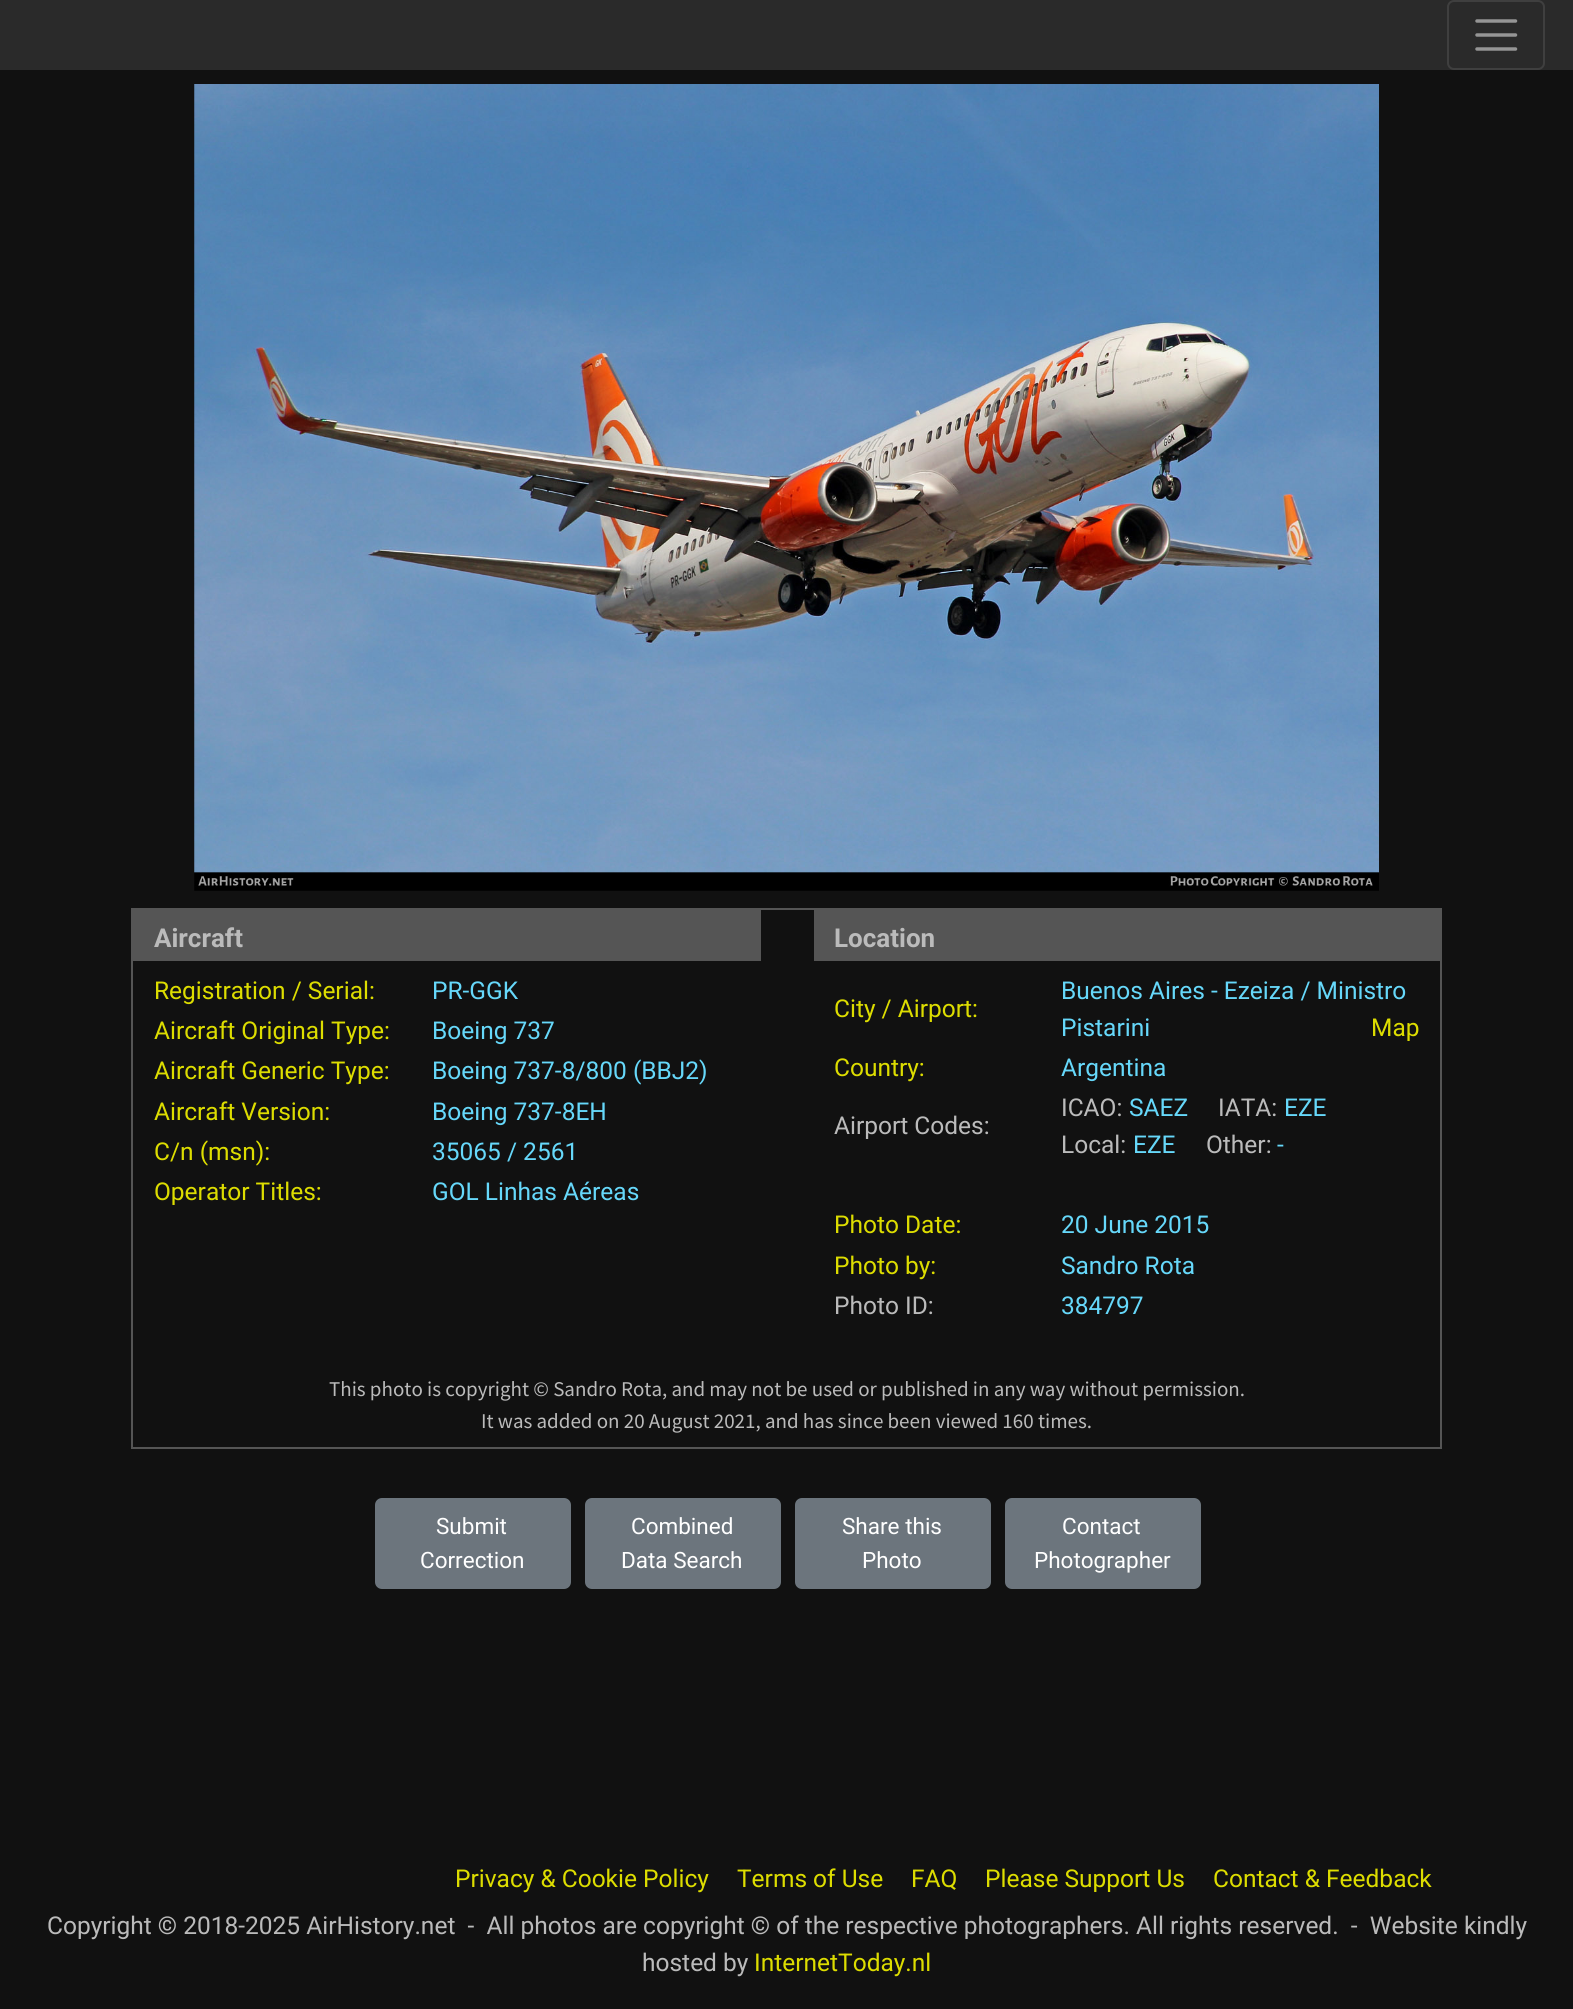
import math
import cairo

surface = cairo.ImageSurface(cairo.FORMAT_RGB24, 1573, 2009)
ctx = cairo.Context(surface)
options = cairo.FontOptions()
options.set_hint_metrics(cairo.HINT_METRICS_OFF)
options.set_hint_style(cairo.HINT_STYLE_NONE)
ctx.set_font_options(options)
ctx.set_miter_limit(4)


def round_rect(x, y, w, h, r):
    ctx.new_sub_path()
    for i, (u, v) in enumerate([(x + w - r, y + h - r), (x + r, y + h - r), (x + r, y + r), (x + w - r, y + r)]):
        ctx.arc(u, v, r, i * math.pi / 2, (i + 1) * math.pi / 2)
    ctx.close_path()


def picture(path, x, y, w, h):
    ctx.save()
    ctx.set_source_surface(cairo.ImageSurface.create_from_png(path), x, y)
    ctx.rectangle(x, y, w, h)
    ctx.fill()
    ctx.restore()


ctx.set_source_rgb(0.067, 0.067, 0.067)
ctx.paint()
ctx.set_source_rgb(0.165, 0.165, 0.165)
ctx.rectangle(0, 0, 1573, 70)
ctx.fill()
round_rect(1448, 1, 96, 68, 6)
ctx.set_source_rgb(0.247, 0.247, 0.247)
ctx.stroke()
ctx.new_path()
ctx.move_to(1477, 21)
ctx.line_to(1515.5, 21)
ctx.move_to(1477, 35)
ctx.line_to(1515.5, 35)
ctx.move_to(1477, 49)
ctx.line_to(1515.5, 49)
ctx.set_source_rgb(0.584, 0.584, 0.584)
ctx.set_line_width(3.5)
ctx.set_line_cap(cairo.LINE_CAP_ROUND)
ctx.stroke()
picture("img1.png", 194, 84, 1185, 807)
ctx.rectangle(132, 909, 1309, 539)
ctx.set_source_rgb(0.333, 0.333, 0.333)
ctx.set_line_width(2)
ctx.set_line_cap(cairo.LINE_CAP_BUTT)
ctx.stroke()
ctx.rectangle(133, 910, 628, 51)
ctx.fill()
ctx.select_font_face("Roboto", cairo.FONT_SLANT_NORMAL, cairo.FONT_WEIGHT_BOLD)
ctx.set_font_size(26)
ctx.set_source_rgb(0.733, 0.733, 0.733)
ctx.move_to(154, 947)
ctx.show_text("Aircraft")
ctx.select_font_face("Roboto")
ctx.set_font_size(24.5)
ctx.set_source_rgb(0.867, 0.867, 0)
ctx.move_to(154, 999)
ctx.show_text("Registration / Serial:")
ctx.set_source_rgb(0.4, 0.847, 0.98)
ctx.move_to(432, 999)
ctx.show_text("PR-GGK")
ctx.set_source_rgb(0.867, 0.867, 0)
ctx.move_to(154, 1039)
ctx.show_text("Aircraft Original Type:")
ctx.set_source_rgb(0.4, 0.847, 0.98)
ctx.move_to(432, 1039)
ctx.show_text("Boeing 737")
ctx.set_source_rgb(0.867, 0.867, 0)
ctx.move_to(154, 1079)
ctx.show_text("Aircraft Generic Type:")
ctx.set_source_rgb(0.4, 0.847, 0.98)
ctx.move_to(432, 1079)
ctx.show_text("Boeing 737-8/800 (BBJ2)")
ctx.set_source_rgb(0.867, 0.867, 0)
ctx.move_to(154, 1120)
ctx.show_text("Aircraft Version:")
ctx.set_source_rgb(0.4, 0.847, 0.98)
ctx.move_to(432, 1120)
ctx.show_text("Boeing 737-8EH")
ctx.set_source_rgb(0.867, 0.867, 0)
ctx.move_to(154, 1160)
ctx.show_text("C/n (msn):")
ctx.set_source_rgb(0.4, 0.847, 0.98)
ctx.move_to(432, 1160)
ctx.show_text("35065 / 2561")
ctx.set_source_rgb(0.867, 0.867, 0)
ctx.move_to(154, 1200)
ctx.show_text("Operator Titles:")
ctx.set_source_rgb(0.4, 0.847, 0.98)
ctx.move_to(432, 1200)
ctx.show_text("GOL Linhas Aéreas")
ctx.set_source_rgb(0.333, 0.333, 0.333)
ctx.rectangle(814, 910, 626, 51)
ctx.fill()
ctx.select_font_face("Roboto", cairo.FONT_SLANT_NORMAL, cairo.FONT_WEIGHT_BOLD)
ctx.set_font_size(26)
ctx.set_source_rgb(0.733, 0.733, 0.733)
ctx.move_to(834, 947)
ctx.show_text("Location")
ctx.select_font_face("Roboto")
ctx.set_font_size(24.5)
ctx.set_source_rgb(0.867, 0.867, 0)
ctx.move_to(834, 1017)
ctx.show_text("City / Airport:")
ctx.set_source_rgb(0.4, 0.847, 0.98)
ctx.move_to(1061, 999)
ctx.show_text("Buenos Aires - Ezeiza / Ministro")
ctx.move_to(1061, 1036)
ctx.show_text("Pistarini")
ctx.set_source_rgb(0.867, 0.867, 0)
ctx.move_to(1371, 1036)
ctx.show_text("Map")
ctx.move_to(834, 1076)
ctx.show_text("Country:")
ctx.set_source_rgb(0.4, 0.847, 0.98)
ctx.move_to(1061, 1076)
ctx.show_text("Argentina")
ctx.set_source_rgb(0.733, 0.733, 0.733)
ctx.move_to(834, 1134)
ctx.show_text("Airport Codes:")
ctx.move_to(1061, 1116)
ctx.show_text("ICAO:")
ctx.set_source_rgb(0.4, 0.847, 0.98)
ctx.move_to(1129, 1116)
ctx.show_text("SAEZ")
ctx.set_source_rgb(0.733, 0.733, 0.733)
ctx.move_to(1218, 1116)
ctx.show_text("IATA:")
ctx.set_source_rgb(0.4, 0.847, 0.98)
ctx.move_to(1284, 1116)
ctx.show_text("EZE")
ctx.set_source_rgb(0.733, 0.733, 0.733)
ctx.move_to(1061, 1153)
ctx.show_text("Local:")
ctx.set_source_rgb(0.4, 0.847, 0.98)
ctx.move_to(1133, 1153)
ctx.show_text("EZE")
ctx.set_source_rgb(0.733, 0.733, 0.733)
ctx.move_to(1206, 1153)
ctx.show_text("Other:")
ctx.set_source_rgb(0.4, 0.847, 0.98)
ctx.move_to(1277, 1153)
ctx.show_text("-")
ctx.set_source_rgb(0.867, 0.867, 0)
ctx.move_to(834, 1233)
ctx.show_text("Photo Date:")
ctx.set_source_rgb(0.4, 0.847, 0.98)
ctx.move_to(1061, 1233)
ctx.show_text("20 June 2015")
ctx.set_source_rgb(0.867, 0.867, 0)
ctx.move_to(834, 1274)
ctx.show_text("Photo by:")
ctx.set_source_rgb(0.4, 0.847, 0.98)
ctx.move_to(1061, 1274)
ctx.show_text("Sandro Rota")
ctx.set_source_rgb(0.733, 0.733, 0.733)
ctx.move_to(834, 1314)
ctx.show_text("Photo ID:")
ctx.set_source_rgb(0.4, 0.847, 0.98)
ctx.move_to(1061, 1314)
ctx.show_text("384797")
ctx.select_font_face("Source Sans Pro")
ctx.set_font_size(21)
ctx.set_source_rgb(0.733, 0.733, 0.733)
ctx.move_to(329, 1396)
ctx.show_text("This photo is copyright © Sandro Rota, and may not be used or published in any way without permission.")
ctx.move_to(481, 1428)
ctx.show_text("It was added on 20 August 2021, and has since been viewed 160 times.")
ctx.set_source_rgb(0.424, 0.459, 0.49)
round_rect(376, 1499, 194, 89, 6)
ctx.fill_preserve()
ctx.stroke()
ctx.select_font_face("Roboto")
ctx.set_font_size(22.5)
ctx.set_source_rgb(1, 1, 1)
ctx.move_to(436, 1534)
ctx.show_text("Submit")
ctx.move_to(420, 1568)
ctx.show_text("Correction")
ctx.set_source_rgb(0.424, 0.459, 0.49)
round_rect(586, 1499, 194, 89, 6)
ctx.fill_preserve()
ctx.stroke()
ctx.set_source_rgb(1, 1, 1)
ctx.move_to(631, 1534)
ctx.show_text("Combined")
ctx.move_to(621, 1568)
ctx.show_text("Data Search")
ctx.set_source_rgb(0.424, 0.459, 0.49)
round_rect(796, 1499, 194, 89, 6)
ctx.fill_preserve()
ctx.stroke()
ctx.set_source_rgb(1, 1, 1)
ctx.move_to(842, 1534)
ctx.show_text("Share this")
ctx.move_to(862, 1568)
ctx.show_text("Photo")
ctx.set_source_rgb(0.424, 0.459, 0.49)
round_rect(1006, 1499, 194, 89, 6)
ctx.fill_preserve()
ctx.stroke()
ctx.set_source_rgb(1, 1, 1)
ctx.move_to(1062, 1534)
ctx.show_text("Contact")
ctx.move_to(1034, 1568)
ctx.show_text("Photographer")
ctx.set_font_size(24.5)
ctx.set_source_rgb(0.867, 0.867, 0)
ctx.move_to(455, 1887)
ctx.show_text("Privacy & Cookie Policy")
ctx.move_to(737, 1887)
ctx.show_text("Terms of Use")
ctx.move_to(911, 1887)
ctx.show_text("FAQ")
ctx.move_to(985, 1887)
ctx.show_text("Please Support Us")
ctx.move_to(1213, 1887)
ctx.show_text("Contact & Feedback")
ctx.set_source_rgb(0.733, 0.733, 0.733)
ctx.move_to(47, 1934)
ctx.show_text("Copyright © 2018-2025 AirHistory.net  -  All photos are copyright © of the respective photographers. All rights reserved.  -  Website kindly")
ctx.move_to(642, 1971)
ctx.show_text("hosted by")
ctx.set_source_rgb(0.867, 0.867, 0)
ctx.move_to(754, 1971)
ctx.show_text("InternetToday.nl")
surface.write_to_png("page.png")
